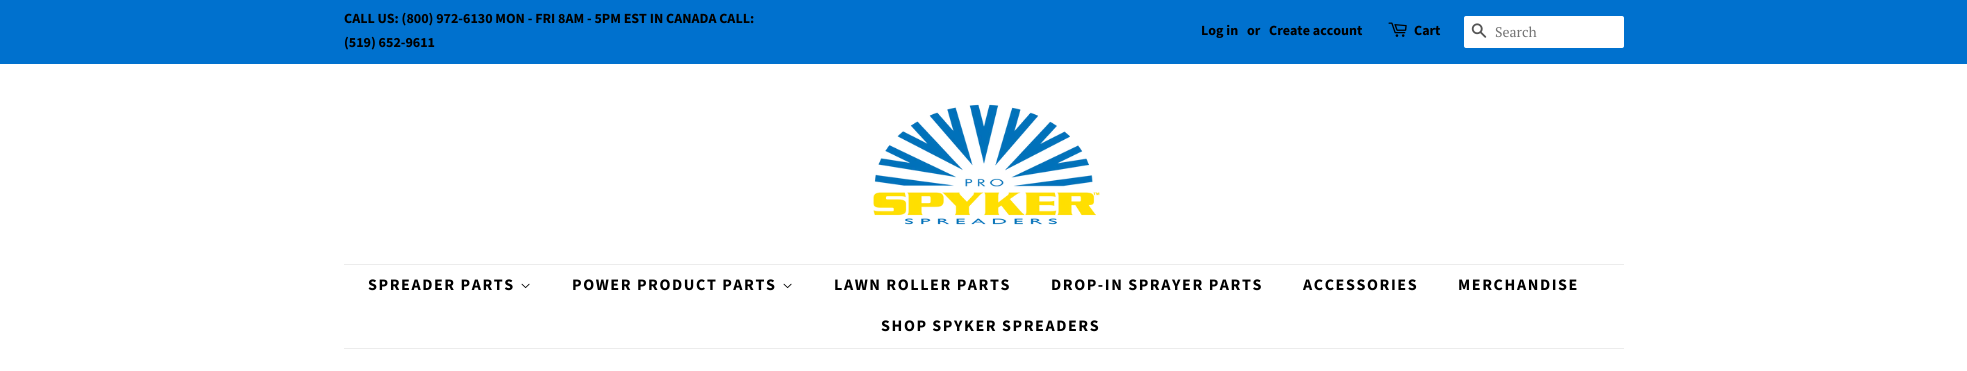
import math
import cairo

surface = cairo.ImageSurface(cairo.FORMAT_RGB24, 1967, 371)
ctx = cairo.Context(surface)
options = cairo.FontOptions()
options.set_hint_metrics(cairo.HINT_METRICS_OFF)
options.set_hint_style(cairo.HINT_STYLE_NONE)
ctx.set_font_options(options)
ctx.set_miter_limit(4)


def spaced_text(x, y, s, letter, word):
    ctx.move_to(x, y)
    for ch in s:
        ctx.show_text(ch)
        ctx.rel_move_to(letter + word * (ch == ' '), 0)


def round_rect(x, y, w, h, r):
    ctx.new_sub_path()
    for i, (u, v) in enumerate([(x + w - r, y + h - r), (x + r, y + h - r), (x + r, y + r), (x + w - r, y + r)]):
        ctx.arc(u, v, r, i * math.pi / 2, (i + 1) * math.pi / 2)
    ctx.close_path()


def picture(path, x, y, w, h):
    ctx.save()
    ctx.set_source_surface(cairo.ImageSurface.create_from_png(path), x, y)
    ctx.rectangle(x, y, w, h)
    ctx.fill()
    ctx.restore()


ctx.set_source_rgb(1, 1, 1)
ctx.paint()
ctx.set_source_rgb(0, 0.443, 0.808)
ctx.rectangle(0, 0, 1967, 64)
ctx.fill()
ctx.select_font_face("Source Sans Pro", cairo.FONT_SLANT_NORMAL, cairo.FONT_WEIGHT_BOLD)
ctx.set_font_size(14)
ctx.set_source_rgb(0, 0, 0)
ctx.move_to(344, 23)
ctx.show_text("CALL US: (800) 972-6130 MON - FRI 8AM - 5PM EST IN CANADA CALL:")
ctx.move_to(344, 47)
ctx.show_text("(519) 652-9611")
ctx.move_to(1201, 35)
ctx.show_text("Log in")
ctx.move_to(1247, 35)
ctx.show_text("or")
ctx.move_to(1269, 35)
ctx.show_text("Create account")
picture("img1.png", 1388, 22, 19, 15)
ctx.move_to(1414, 35)
ctx.show_text("Cart")
ctx.set_source_rgb(1, 1, 1)
round_rect(1464, 16, 160, 32, 2)
ctx.fill()
picture("img2.png", 1471, 23, 16, 15)
ctx.select_font_face("PT Serif")
ctx.set_source_rgb(0.459, 0.459, 0.459)
ctx.move_to(1495, 37)
ctx.show_text("Search")
picture("img3.png", 873, 104, 227, 121)
ctx.set_source_rgb(0.922, 0.922, 0.922)
ctx.rectangle(344, 264, 1280, 1)
ctx.fill()
ctx.rectangle(344, 348, 1280, 1)
ctx.fill()
ctx.select_font_face("Source Sans Pro", cairo.FONT_SLANT_NORMAL, cairo.FONT_WEIGHT_BOLD)
ctx.set_font_size(16)
ctx.set_source_rgb(0, 0, 0)
spaced_text(368, 290, "SPREADER PARTS", 1.6, 0)
picture("img4.png", 521, 283, 9, 6)
spaced_text(572, 290, "POWER PRODUCT PARTS", 1.6, 0)
picture("img4.png", 783, 283, 9, 6)
spaced_text(834, 290, "LAWN ROLLER PARTS", 1.6, 0)
spaced_text(1051, 290, "DROP-IN SPRAYER PARTS", 1.6, 0)
spaced_text(1303, 290, "ACCESSORIES", 1.6, 0)
spaced_text(1458, 290, "MERCHANDISE", 1.6, 0)
spaced_text(881, 331, "SHOP SPYKER SPREADERS", 1.6, 0)
surface.write_to_png("page.png")
